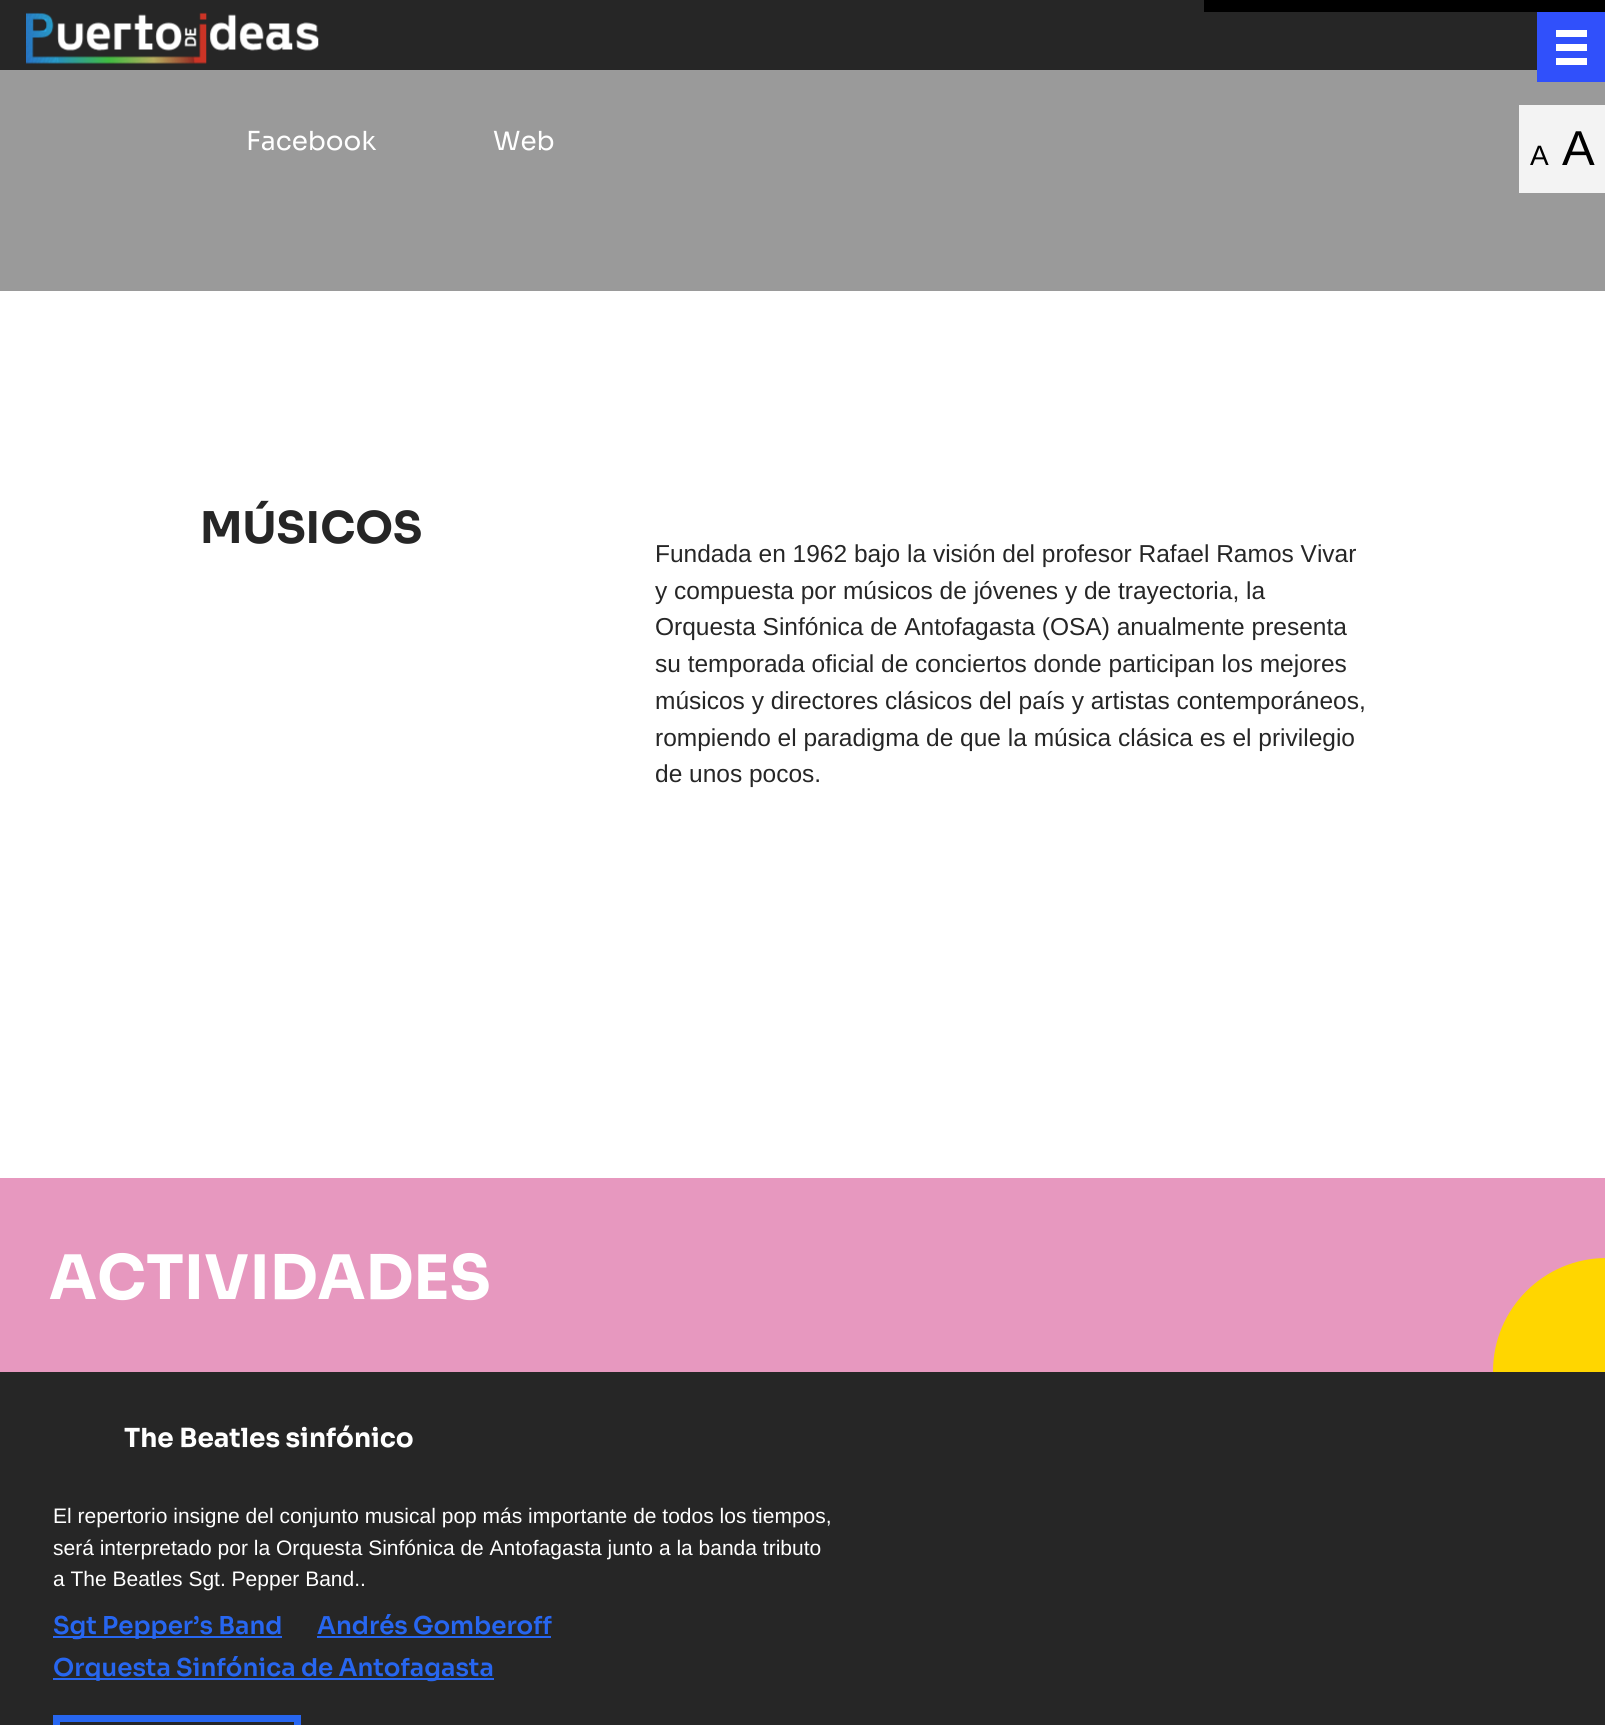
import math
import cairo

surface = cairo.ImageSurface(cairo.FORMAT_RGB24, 1605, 1725)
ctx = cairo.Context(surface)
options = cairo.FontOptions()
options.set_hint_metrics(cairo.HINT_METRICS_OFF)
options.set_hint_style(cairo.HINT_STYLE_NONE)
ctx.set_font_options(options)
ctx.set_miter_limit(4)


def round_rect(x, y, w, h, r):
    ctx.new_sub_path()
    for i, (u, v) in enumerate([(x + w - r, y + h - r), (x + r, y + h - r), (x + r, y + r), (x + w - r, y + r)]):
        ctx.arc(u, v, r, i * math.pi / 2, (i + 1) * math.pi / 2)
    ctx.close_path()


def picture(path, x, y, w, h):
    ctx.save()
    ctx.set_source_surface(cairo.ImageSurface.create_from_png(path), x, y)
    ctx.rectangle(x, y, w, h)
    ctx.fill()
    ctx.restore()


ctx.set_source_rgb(1, 1, 1)
ctx.paint()
ctx.set_source_rgb(0.149, 0.149, 0.149)
ctx.rectangle(0, 0, 1537, 70)
ctx.fill()
picture("img1.png", 26, 12, 293, 52)
ctx.set_source_rgb(0, 0, 0)
ctx.rectangle(1204, 0, 401, 12)
ctx.fill()
ctx.set_source_rgb(0.604, 0.604, 0.604)
ctx.rectangle(0, 70, 1605, 221)
ctx.fill()
ctx.set_source_rgb(0.188, 0.314, 0.984)
ctx.rectangle(1537, 12, 68, 70)
ctx.fill()
ctx.set_source_rgb(1, 1, 1)
ctx.rectangle(1556, 44, 31, 7)
ctx.fill()
ctx.rectangle(1556, 30, 31, 7)
ctx.fill()
ctx.rectangle(1556, 58, 31, 7)
ctx.fill()
ctx.select_font_face("Sora")
ctx.set_font_size(26.25)
ctx.move_to(246, 150)
ctx.show_text("Facebook")
ctx.move_to(493, 150)
ctx.show_text("Web")
ctx.select_font_face("Sora", cairo.FONT_SLANT_NORMAL, cairo.FONT_WEIGHT_BOLD)
ctx.set_font_size(43.75)
ctx.set_source_rgb(0.149, 0.149, 0.149)
ctx.move_to(200, 543)
ctx.show_text("MÚSICOS")
ctx.select_font_face("Liberation Sans")
ctx.set_font_size(24.5)
ctx.move_to(655, 562)
ctx.show_text("Fundada en 1962 bajo la visión del profesor Rafael Ramos Vivar")
ctx.move_to(655, 599)
ctx.show_text("y compuesta por músicos de jóvenes y de trayectoria, la")
ctx.move_to(655, 635)
ctx.show_text("Orquesta Sinfónica de Antofagasta (OSA) anualmente presenta")
ctx.move_to(655, 672)
ctx.show_text("su temporada oficial de conciertos donde participan los mejores")
ctx.move_to(655, 709)
ctx.show_text("músicos y directores clásicos del país y artistas contemporáneos,")
ctx.move_to(655, 746)
ctx.show_text("rompiendo el paradigma de que la música clásica es el privilegio")
ctx.move_to(655, 782)
ctx.show_text("de unos pocos.")
ctx.set_source_rgb(0.906, 0.596, 0.749)
ctx.rectangle(0, 1178, 1605, 194)
ctx.fill()
ctx.select_font_face("Sora", cairo.FONT_SLANT_NORMAL, cairo.FONT_WEIGHT_BOLD)
ctx.set_font_size(61.25)
ctx.set_source_rgb(1, 1, 1)
ctx.move_to(49, 1299)
ctx.show_text("ACTIVIDADES")
ctx.set_source_rgb(0.149, 0.149, 0.149)
ctx.rectangle(0, 1372, 1605, 353)
ctx.fill()
ctx.save()
ctx.rectangle(0, 1178, 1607, 194)
ctx.clip()
ctx.set_source_rgb(1, 0.839, 0)
round_rect(1493, 1258, 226, 228, 113.5)
ctx.fill()
ctx.restore()
ctx.set_font_size(26.25)
ctx.set_source_rgb(1, 1, 1)
ctx.move_to(124, 1447)
ctx.show_text("The Beatles sinfónico")
ctx.select_font_face("Liberation Sans")
ctx.set_font_size(21)
ctx.move_to(53, 1523)
ctx.show_text("El repertorio insigne del conjunto musical pop más importante de todos los tiempos,")
ctx.move_to(53, 1555)
ctx.show_text("será interpretado por la Orquesta Sinfónica de Antofagasta junto a la banda tributo")
ctx.move_to(53, 1586)
ctx.show_text("a The Beatles Sgt. Pepper Band..")
ctx.select_font_face("Sora SemiBold")
ctx.set_font_size(24.5)
ctx.set_source_rgb(0.153, 0.4, 0.941)
ctx.move_to(53, 1634)
ctx.show_text("Sgt Pepper’s Band")
ctx.rectangle(53, 1636, 229, 2)
ctx.fill()
ctx.move_to(317, 1634)
ctx.show_text("Andrés Gomberoff")
ctx.rectangle(317, 1636, 234, 2)
ctx.fill()
ctx.move_to(53, 1676)
ctx.show_text("Orquesta Sinfónica de Antofagasta")
ctx.rectangle(53, 1678, 441, 2)
ctx.fill()
ctx.rectangle(56.5, 1718.5, 241, 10)
ctx.set_line_width(7)
ctx.stroke()
ctx.set_source_rgb(0.953, 0.953, 0.953)
ctx.rectangle(1519, 105, 86, 88)
ctx.fill()
ctx.select_font_face("Liberation Sans")
ctx.set_font_size(28)
ctx.set_source_rgb(0, 0, 0)
ctx.move_to(1530, 165)
ctx.show_text("A")
ctx.set_font_size(49)
ctx.move_to(1562, 165)
ctx.show_text("A")
surface.write_to_png("page.png")
